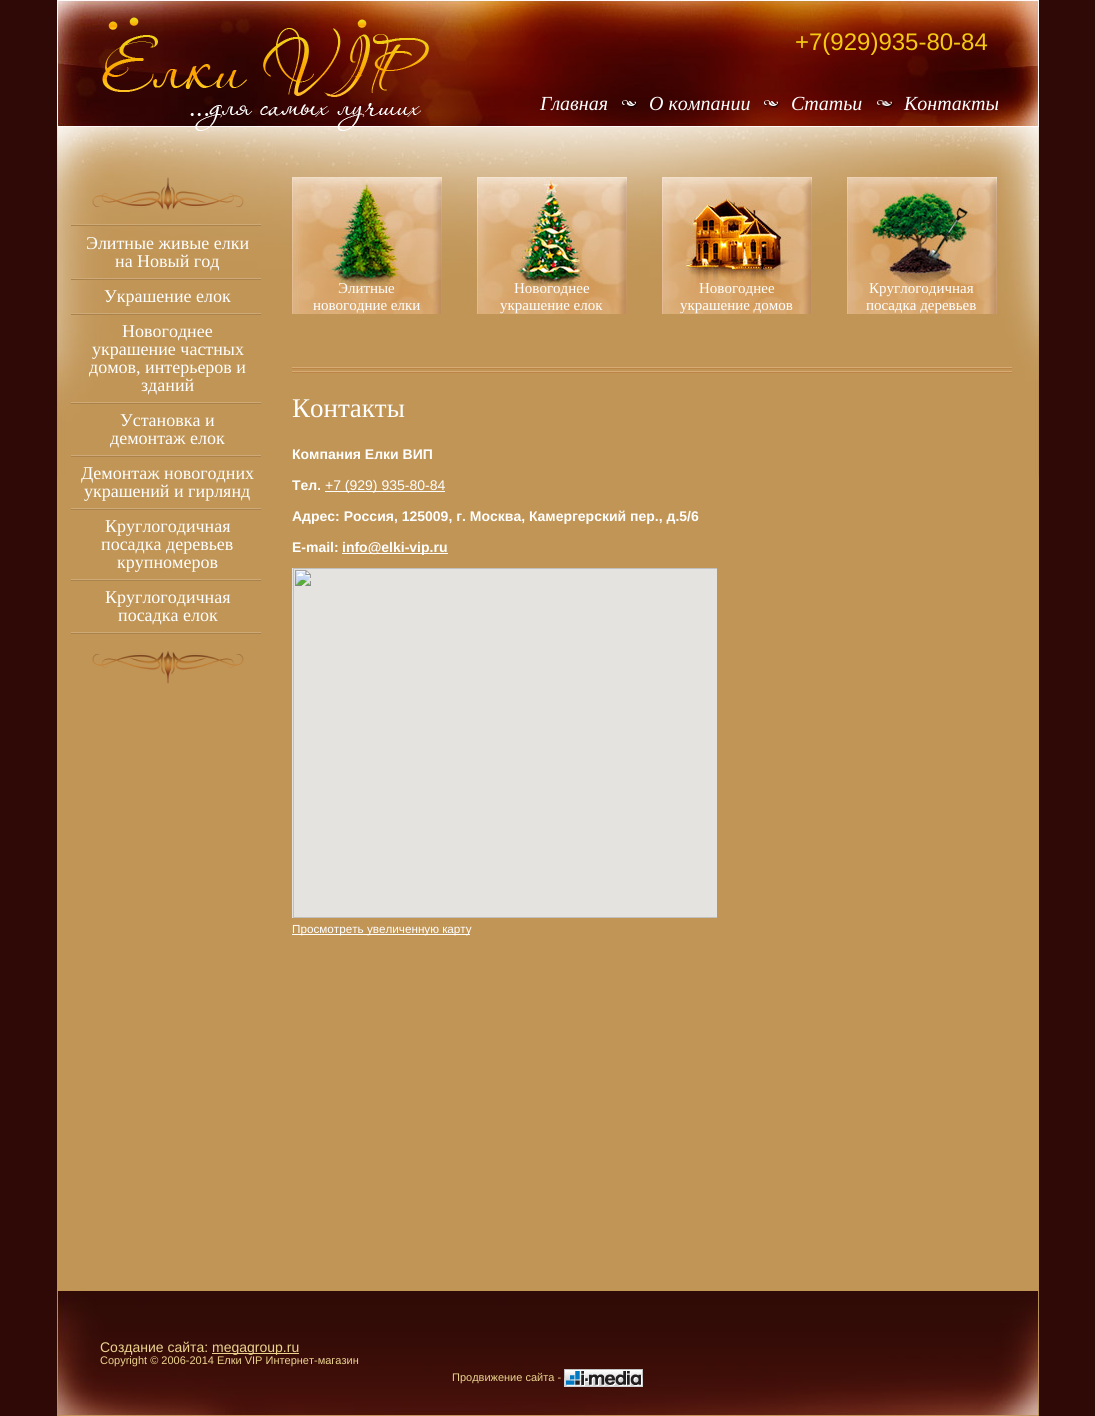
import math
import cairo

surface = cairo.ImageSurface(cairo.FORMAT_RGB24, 1095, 1416)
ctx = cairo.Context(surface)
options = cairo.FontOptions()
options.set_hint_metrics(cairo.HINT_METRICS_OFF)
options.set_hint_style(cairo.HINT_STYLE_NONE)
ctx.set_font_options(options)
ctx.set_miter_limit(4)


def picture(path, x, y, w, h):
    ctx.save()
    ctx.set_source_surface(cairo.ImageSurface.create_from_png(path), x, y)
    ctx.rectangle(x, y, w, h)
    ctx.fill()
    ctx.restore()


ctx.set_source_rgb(0.18, 0.039, 0.024)
ctx.paint()
ctx.set_source_rgb(0.757, 0.584, 0.337)
ctx.rectangle(57, 476, 982, 815)
ctx.fill()
picture("img1.png", 57, 127, 982, 349)
picture("img2.png", 58, 1, 980, 125)
ctx.rectangle(57.5, 0.5, 981, 126)
ctx.set_source_rgb(1, 0.98, 0.976)
ctx.set_line_width(1)
ctx.stroke()
picture("img3.png", 102, 17, 327, 114)
ctx.select_font_face("Liberation Sans")
ctx.set_font_size(24)
ctx.set_source_rgb(0.953, 0.788, 0.075)
ctx.move_to(795, 50)
ctx.show_text("+7(929)935-80-84")
ctx.select_font_face("Liberation Serif", cairo.FONT_SLANT_ITALIC)
ctx.set_font_size(20)
ctx.set_source_rgb(1, 1, 1)
ctx.move_to(540, 110)
ctx.show_text("Главная")
picture("img4.png", 622, 100, 16, 8)
ctx.move_to(649, 110)
ctx.show_text("О компании")
picture("img5.png", 764, 100, 16, 8)
ctx.move_to(791, 110)
ctx.show_text("Статьи")
picture("img6.png", 877, 100, 17, 8)
ctx.move_to(904, 110)
ctx.show_text("Контакты")
picture("img7.png", 92, 177, 152, 33)
picture("img8.png", 71, 224, 190, 2)
picture("img8.png", 71, 278, 190, 2)
ctx.select_font_face("Liberation Serif")
ctx.set_font_size(18)
ctx.move_to(86, 249)
ctx.show_text("Элитные живые елки")
ctx.move_to(115, 267)
ctx.show_text("на Новый год")
picture("img8.png", 71, 313, 190, 2)
ctx.move_to(104, 302)
ctx.show_text("Украшение елок")
picture("img8.png", 71, 402, 190, 2)
ctx.move_to(122, 337)
ctx.show_text("Новогоднее")
ctx.move_to(92, 355)
ctx.show_text("украшение частных")
ctx.move_to(89, 373)
ctx.show_text("домов, интерьеров и")
ctx.move_to(141, 391)
ctx.show_text("зданий")
picture("img8.png", 71, 455, 190, 2)
ctx.move_to(120, 426)
ctx.show_text("Установка и")
ctx.move_to(110, 444)
ctx.show_text("демонтаж елок")
picture("img8.png", 71, 508, 190, 2)
ctx.move_to(81, 479)
ctx.show_text("Демонтаж новогодних")
ctx.move_to(84, 497)
ctx.show_text("украшений и гирлянд")
picture("img8.png", 71, 579, 190, 2)
ctx.move_to(105, 532)
ctx.show_text("Круглогодичная")
ctx.move_to(101, 550)
ctx.show_text("посадка деревьев")
ctx.move_to(117, 568)
ctx.show_text("крупномеров")
picture("img8.png", 71, 632, 190, 2)
ctx.move_to(105, 603)
ctx.show_text("Круглогодичная")
ctx.move_to(118, 621)
ctx.show_text("посадка елок")
picture("img9.png", 92, 651, 152, 33)
picture("img10.png", 292, 367, 720, 6)
picture("img11.png", 292, 177, 150, 137)
ctx.set_font_size(15)
ctx.move_to(338, 293)
ctx.show_text("Элитные")
ctx.move_to(313, 310)
ctx.show_text("новогодние елки")
picture("img12.png", 477, 177, 150, 137)
ctx.move_to(514, 293)
ctx.show_text("Новогоднее")
ctx.move_to(500, 310)
ctx.show_text("украшение елок")
picture("img13.png", 662, 177, 150, 137)
ctx.move_to(699, 293)
ctx.show_text("Новогоднее")
ctx.move_to(680, 310)
ctx.show_text("украшение домов")
picture("img14.png", 847, 177, 150, 137)
ctx.move_to(869, 293)
ctx.show_text("Круглогодичная")
ctx.move_to(866, 310)
ctx.show_text("посадка деревьев")
ctx.set_font_size(27)
ctx.move_to(292, 417)
ctx.show_text("Контакты")
ctx.select_font_face("Liberation Sans", cairo.FONT_SLANT_NORMAL, cairo.FONT_WEIGHT_BOLD)
ctx.set_font_size(14)
ctx.move_to(292, 459)
ctx.show_text("Компания Елки ВИП")
ctx.move_to(292, 490)
ctx.show_text("Тел.")
ctx.rectangle(325, 491, 120, 1)
ctx.fill()
ctx.select_font_face("Liberation Sans")
ctx.move_to(325, 490)
ctx.show_text("+7 (929) 935-80-84")
ctx.select_font_face("Liberation Sans", cairo.FONT_SLANT_NORMAL, cairo.FONT_WEIGHT_BOLD)
ctx.move_to(292, 521)
ctx.show_text("Адрес: Россия, 125009, г. Москва, Камергерский пер., д.5/6")
ctx.move_to(292, 552)
ctx.show_text("E-mail:")
ctx.rectangle(342, 553, 106, 1)
ctx.fill()
ctx.move_to(342, 552)
ctx.show_text("info@elki-vip.ru")
picture("img15.png", 292, 568, 425, 350)
ctx.rectangle(292, 934, 178, 1)
ctx.fill()
ctx.select_font_face("Liberation Sans")
ctx.set_font_size(11.7)
ctx.move_to(292, 933)
ctx.show_text("Просмотреть увеличенную карту")
picture("img16.png", 57, 1291, 982, 125)
ctx.set_font_size(14)
ctx.set_source_rgb(0.918, 0.827, 0.557)
ctx.move_to(100, 1352)
ctx.show_text("Создание сайта:")
ctx.rectangle(212, 1353, 87, 1)
ctx.fill()
ctx.move_to(212, 1352)
ctx.show_text("megagroup.ru")
ctx.set_font_size(11)
ctx.move_to(100, 1364)
ctx.show_text("Copyright © 2006-2014 Елки VIP Интернет-магазин")
ctx.move_to(452, 1381)
ctx.show_text("Продвижение сайта -")
picture("img17.png", 564, 1369, 79, 18)
surface.write_to_png("page.png")
